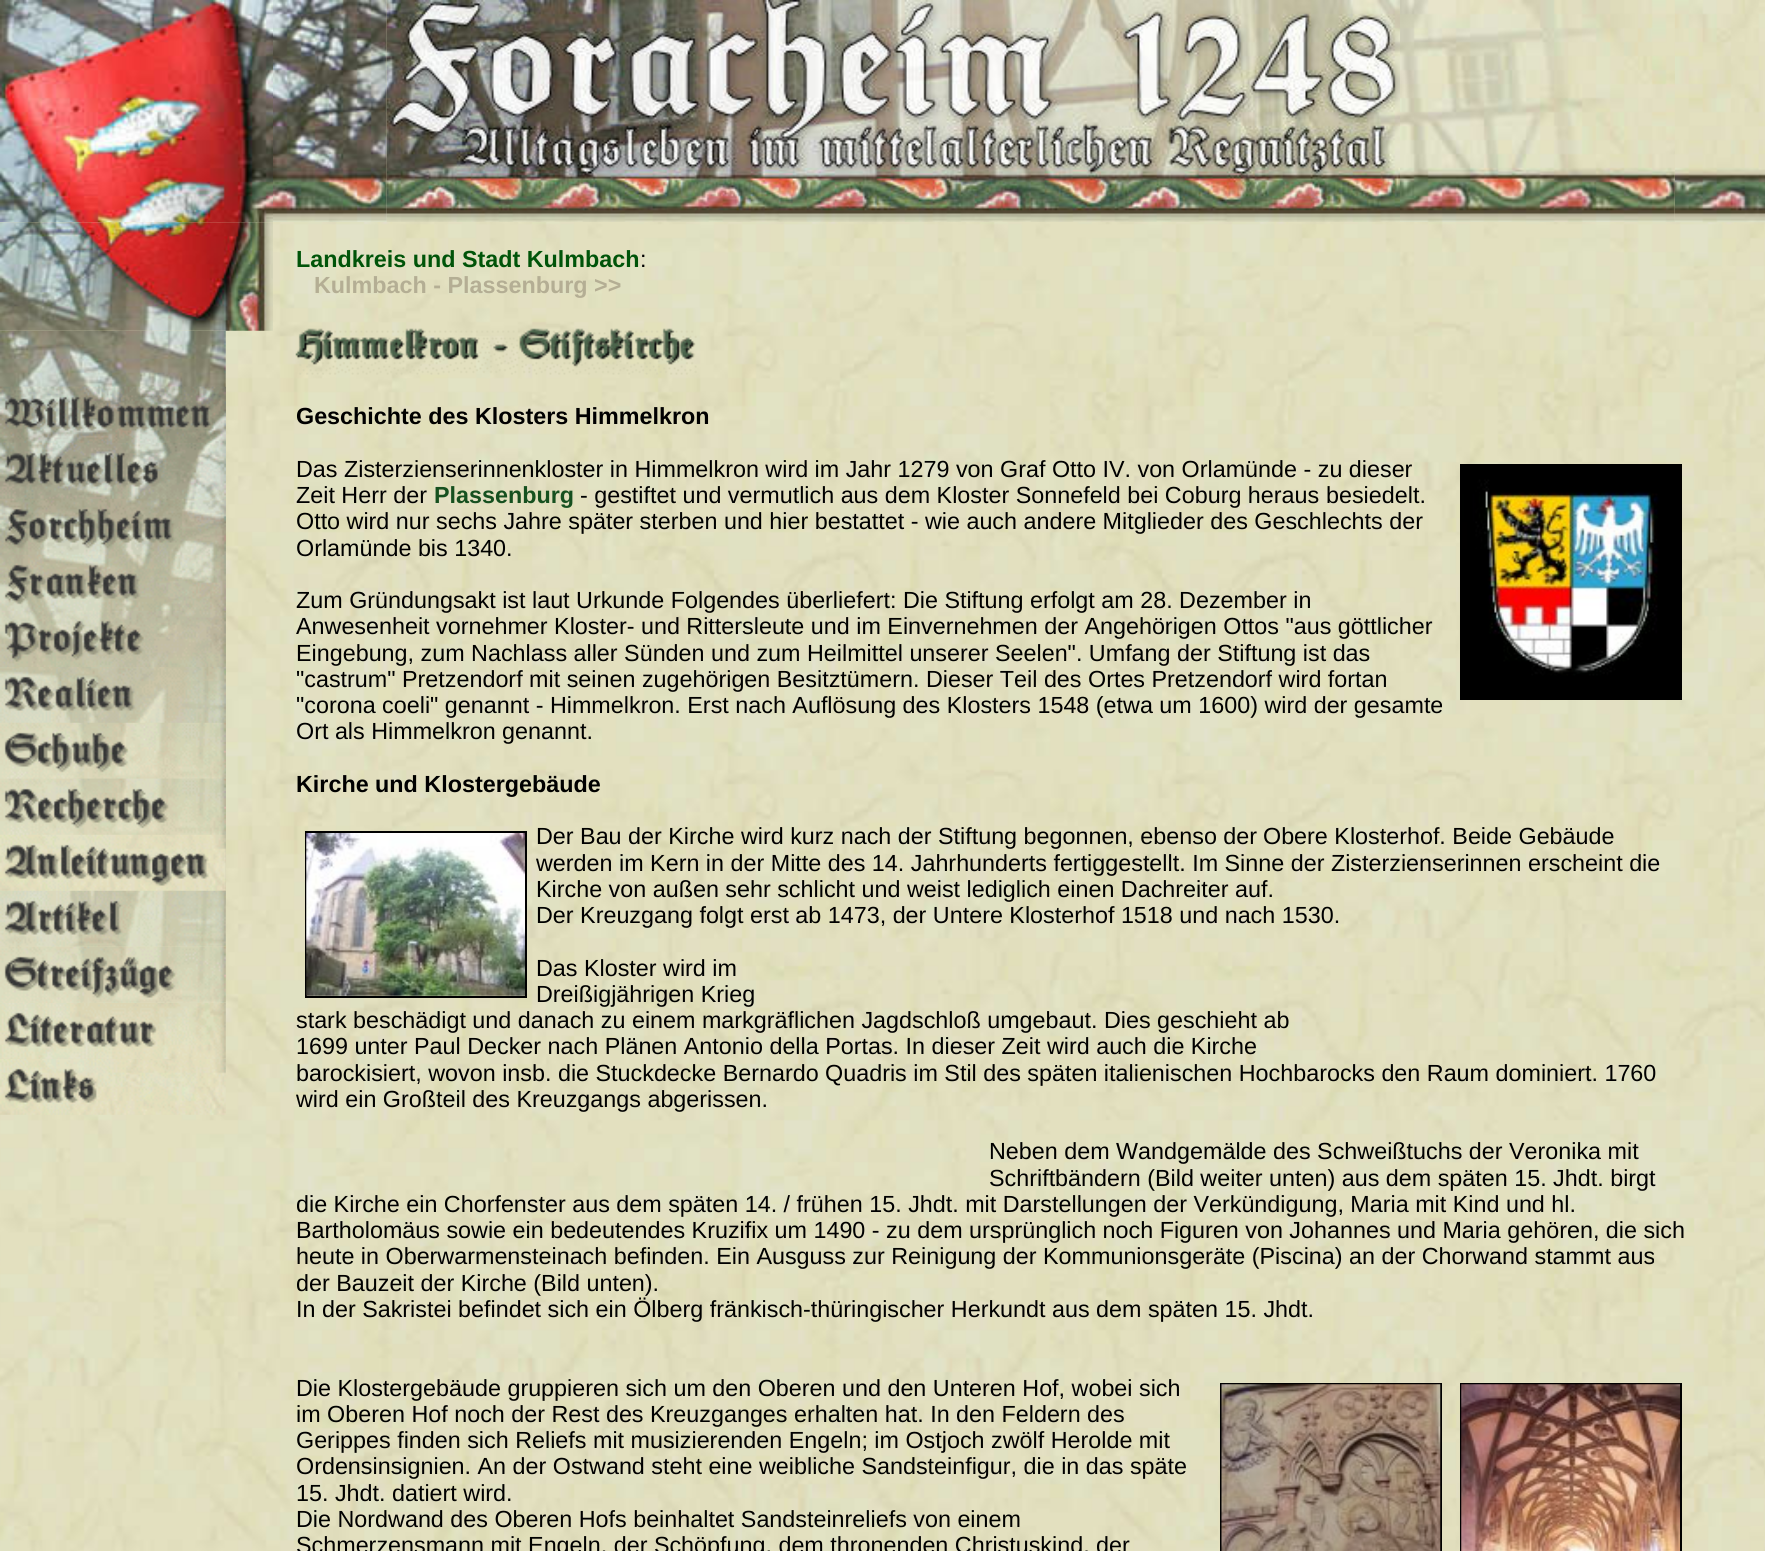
import math
import cairo

surface = cairo.ImageSurface(cairo.FORMAT_RGB24, 1765, 1551)
ctx = cairo.Context(surface)
options = cairo.FontOptions()
options.set_hint_metrics(cairo.HINT_METRICS_OFF)
options.set_hint_style(cairo.HINT_STYLE_NONE)
ctx.set_font_options(options)
ctx.set_miter_limit(4)


def picture(path, x, y, w, h):
    ctx.save()
    ctx.set_source_surface(cairo.ImageSurface.create_from_png(path), x, y)
    ctx.rectangle(x, y, w, h)
    ctx.fill()
    ctx.restore()


ctx.set_source_rgb(1, 1, 1)
ctx.paint()
picture("img1.png", 0, 0, 1765, 1551)
picture("img2.png", 0, 0, 273, 223)
picture("img3.png", 273, 0, 114, 222)
picture("img4.png", 386, 0, 1014, 222)
picture("img6.png", 1674, 0, 91, 223)
picture("img5.png", 1400, 0, 275, 222)
picture("img8.png", 0, 330, 226, 701)
picture("img7.png", 0, 222, 273, 109)
picture("img9.png", 0, 386, 226, 57)
picture("img10.png", 0, 442, 226, 57)
picture("img11.png", 0, 498, 226, 57)
picture("img12.png", 0, 554, 226, 57)
picture("img13.png", 0, 610, 226, 57)
picture("img14.png", 0, 667, 226, 56)
picture("img15.png", 0, 722, 226, 57)
picture("img16.png", 0, 778, 226, 57)
picture("img17.png", 0, 834, 226, 57)
picture("img18.png", 0, 890, 226, 57)
picture("img19.png", 0, 946, 226, 57)
picture("img20.png", 0, 1003, 226, 56)
picture("img21.png", 0, 1059, 226, 56)
ctx.select_font_face("Liberation Sans", cairo.FONT_SLANT_NORMAL, cairo.FONT_WEIGHT_BOLD)
ctx.set_font_size(23.33)
ctx.set_source_rgb(0, 0.329, 0.039)
ctx.move_to(296, 267)
ctx.show_text("Landkreis und Stadt Kulmbach")
ctx.select_font_face("Liberation Sans")
ctx.set_source_rgb(0, 0, 0)
ctx.move_to(640, 267)
ctx.show_text(":")
ctx.select_font_face("Liberation Sans", cairo.FONT_SLANT_NORMAL, cairo.FONT_WEIGHT_BOLD)
ctx.set_source_rgb(0.706, 0.682, 0.58)
ctx.move_to(314, 293)
ctx.show_text("Kulmbach - Plassenburg >>")
picture("img22.png", 295, 328, 402, 47)
ctx.set_source_rgb(0, 0, 0)
ctx.move_to(296, 424)
ctx.show_text("Geschichte des Klosters Himmelkron")
ctx.select_font_face("Liberation Sans")
ctx.move_to(296, 477)
ctx.show_text("Das Zisterzienserinnenkloster in Himmelkron wird im Jahr 1279 von Graf Otto IV. von Orlamünde - zu dieser")
ctx.rectangle(1461, 465, 220, 234)
ctx.stroke()
picture("img23.png", 1462, 466, 218, 232)
ctx.move_to(296, 503)
ctx.show_text("Zeit Herr der")
ctx.select_font_face("Liberation Sans", cairo.FONT_SLANT_NORMAL, cairo.FONT_WEIGHT_BOLD)
ctx.set_source_rgb(0.086, 0.314, 0.122)
ctx.move_to(434, 503)
ctx.show_text("Plassenburg")
ctx.select_font_face("Liberation Sans")
ctx.set_source_rgb(0, 0, 0)
ctx.move_to(580, 503)
ctx.show_text("- gestiftet und vermutlich aus dem Kloster Sonnefeld bei Coburg heraus")
ctx.move_to(1326, 503)
ctx.show_text("besiedelt.")
ctx.move_to(296, 529)
ctx.show_text("Otto wird nur sechs Jahre später sterben und hier bestattet - wie auch andere Mitglieder des Geschlechts der")
ctx.move_to(296, 556)
ctx.show_text("Orlamünde bis 1340.")
ctx.move_to(296, 608)
ctx.show_text("Zum Gründungsakt ist laut Urkunde Folgendes überliefert: Die Stiftung erfolgt am 28. Dezember in")
ctx.move_to(296, 634)
ctx.show_text("Anwesenheit vornehmer Kloster- und Rittersleute und im Einvernehmen der Angehörigen Ottos \"aus göttlicher")
ctx.move_to(296, 661)
ctx.show_text("Eingebung, zum Nachlass aller Sünden und zum Heilmittel unserer Seelen\". Umfang der Stiftung ist das")
ctx.move_to(296, 687)
ctx.show_text("\"castrum\" Pretzendorf mit seinen zugehörigen Besitztümern. Dieser Teil des Ortes Pretzendorf wird fortan")
ctx.move_to(296, 713)
ctx.show_text("\"corona coeli\" genannt - Himmelkron. Erst nach Auflösung des Klosters 1548 (etwa um 1600) wird der gesamte")
ctx.move_to(296, 739)
ctx.show_text("Ort als Himmelkron genannt.")
ctx.select_font_face("Liberation Sans", cairo.FONT_SLANT_NORMAL, cairo.FONT_WEIGHT_BOLD)
ctx.move_to(296, 792)
ctx.show_text("Kirche und Klostergebäude")
ctx.rectangle(306, 832, 220, 165)
ctx.stroke()
picture("img24.png", 306, 833, 219, 163)
ctx.select_font_face("Liberation Sans")
ctx.move_to(536, 844)
ctx.show_text("Der Bau der Kirche wird kurz nach der Stiftung begonnen, ebenso der")
ctx.move_to(1263, 844)
ctx.show_text("Obere Klosterhof. Beide Gebäude")
ctx.move_to(536, 871)
ctx.show_text("werden im Kern in der Mitte des 14. Jahrhunderts fertiggestellt. Im Sinne der Zisterzienserinnen erscheint die")
ctx.move_to(536, 897)
ctx.show_text("Kirche von außen sehr schlicht und weist lediglich einen Dachreiter auf.")
ctx.move_to(536, 923)
ctx.show_text("Der Kreuzgang folgt erst ab 1473, der Untere Klosterhof 1518 und nach 1530.")
ctx.move_to(536, 976)
ctx.show_text("Das Kloster wird im")
ctx.move_to(536, 1002)
ctx.show_text("Dreißigjährigen Krieg")
ctx.move_to(296, 1028)
ctx.show_text("stark beschädigt und danach zu einem markgräflichen Jagdschloß umgebaut. Dies geschieht ab")
ctx.move_to(296, 1054)
ctx.show_text("1699 unter Paul Decker nach Plänen Antonio della Portas. In dieser Zeit wird auch die Kirche")
ctx.move_to(296, 1081)
ctx.show_text("barockisiert, wovon insb. die Stuckdecke Bernardo Quadris im Stil des späten italienischen Hochbarocks den Raum dominiert. 1760")
ctx.move_to(296, 1107)
ctx.show_text("wird ein Großteil des Kreuzgangs abgerissen.")
ctx.move_to(989, 1159)
ctx.show_text("Neben dem Wandgemälde des Schweißtuchs der Veronika mit")
ctx.move_to(989, 1186)
ctx.show_text("Schriftbändern (Bild weiter unten) aus dem späten 15. Jhdt. birgt")
ctx.move_to(296, 1212)
ctx.show_text("die Kirche ein Chorfenster aus dem späten 14. / frühen 15. Jhdt. mit Darstellungen der Verkündigung, Maria mit Kind und hl.")
ctx.move_to(296, 1238)
ctx.show_text("Bartholomäus sowie ein bedeutendes Kruzifix um 1490 - zu dem ursprünglich noch Figuren von Johannes und Maria gehören, die sich")
ctx.move_to(296, 1264)
ctx.show_text("heute in Oberwarmensteinach befinden. Ein Ausguss zur Reinigung der Kommunionsgeräte (Piscina) an der Chorwand stammt aus")
ctx.move_to(296, 1291)
ctx.show_text("der Bauzeit der Kirche (Bild unten).")
ctx.move_to(296, 1317)
ctx.show_text("In der Sakristei befindet sich ein Ölberg fränkisch-thüringischer Herkundt aus dem späten 15. Jhdt.")
ctx.move_to(296, 1396)
ctx.show_text("Die Klostergebäude gruppieren sich um den Oberen und den Unteren Hof, wobei sich")
ctx.rectangle(1221, 1384, 220, 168)
ctx.stroke()
picture("img25.png", 1221, 1384, 220, 167)
ctx.rectangle(1461, 1384, 220, 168)
ctx.stroke()
picture("img26.png", 1461, 1384, 219, 167)
ctx.move_to(296, 1422)
ctx.show_text("im Oberen Hof noch der Rest des Kreuzganges erhalten hat. In den Feldern des")
ctx.move_to(296, 1448)
ctx.show_text("Gerippes finden sich Reliefs mit musizierenden Engeln; im Ostjoch zwölf Herolde mit")
ctx.move_to(296, 1474)
ctx.show_text("Ordensinsignien. An der Ostwand steht eine weibliche Sandsteinfigur, die in das späte")
ctx.move_to(296, 1501)
ctx.show_text("15. Jhdt. datiert wird.")
ctx.move_to(296, 1527)
ctx.show_text("Die Nordwand des Oberen Hofs beinhaltet Sandsteinreliefs von einem")
ctx.move_to(296, 1553)
ctx.show_text("Schmerzensmann mit Engeln, der Schöpfung, dem thronenden Christuskind,")
ctx.move_to(1096, 1553)
ctx.show_text("der")
surface.write_to_png("page.png")
